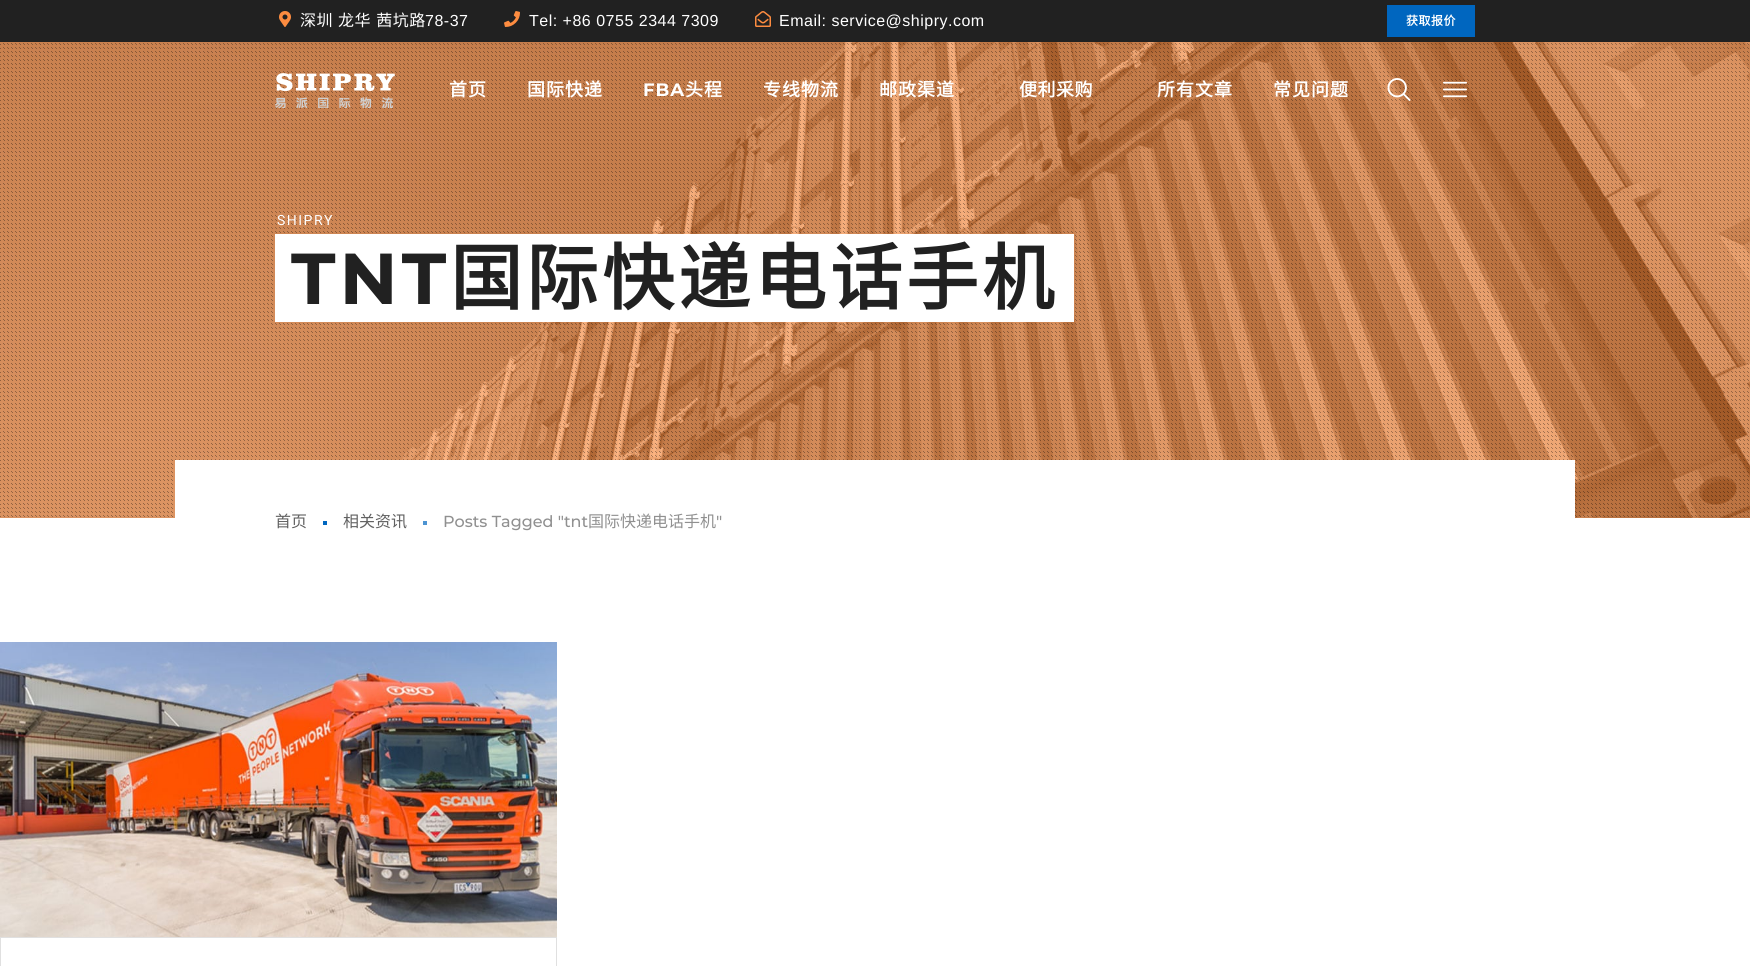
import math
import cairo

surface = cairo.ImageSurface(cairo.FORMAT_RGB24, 1750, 966)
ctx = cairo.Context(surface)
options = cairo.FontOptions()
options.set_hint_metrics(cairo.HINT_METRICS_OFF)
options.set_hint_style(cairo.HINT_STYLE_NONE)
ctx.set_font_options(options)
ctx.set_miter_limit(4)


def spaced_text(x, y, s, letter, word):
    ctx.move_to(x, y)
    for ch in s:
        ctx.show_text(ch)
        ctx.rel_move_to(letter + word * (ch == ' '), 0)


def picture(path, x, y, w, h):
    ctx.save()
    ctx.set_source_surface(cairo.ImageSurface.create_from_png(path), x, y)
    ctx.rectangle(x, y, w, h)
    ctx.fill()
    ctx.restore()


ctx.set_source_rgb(1, 1, 1)
ctx.paint()
ctx.set_source_rgb(0.129, 0.129, 0.129)
ctx.rectangle(0, 0, 1750, 42)
ctx.fill()
picture("img1.png", 279, 11, 12, 16)
ctx.select_font_face("Noto Sans CJK SC")
ctx.set_font_size(16)
ctx.set_source_rgb(1, 1, 1)
spaced_text(300, 26, "深圳 龙华 茜坑路", 0.5, 1)
ctx.select_font_face("Liberation Sans")
spaced_text(425, 26, "78-37", 0.5, 0)
picture("img2.png", 504, 11, 16, 16)
spaced_text(529, 26, "Tel: +86 0755 2344 7309", 0.5, 0)
picture("img3.png", 755, 11, 16, 16)
spaced_text(779, 26, "Email: service@shipry.com", 0.5, 0)
ctx.set_source_rgb(0, 0.4, 0.749)
ctx.rectangle(1387, 5, 88, 32)
ctx.fill()
ctx.select_font_face("Noto Sans CJK SC", cairo.FONT_SLANT_NORMAL, cairo.FONT_WEIGHT_BOLD)
ctx.set_font_size(12)
ctx.set_source_rgb(1, 1, 1)
spaced_text(1406, 25, "获取报价", 0.5, 0)
picture("img5.png", 0, 42, 1750, 476)
picture("img6.png", 0, 43, 1749, 474)
picture("img4.png", 275, 73, 120, 35)
ctx.set_font_size(18)
spaced_text(449, 96, "首页", 1, 0)
spaced_text(527, 96, "国际快递", 1, 0)
ctx.select_font_face("Montserrat", cairo.FONT_SLANT_NORMAL, cairo.FONT_WEIGHT_BOLD)
spaced_text(643, 96, "FBA", 1, 0)
ctx.select_font_face("Noto Sans CJK SC", cairo.FONT_SLANT_NORMAL, cairo.FONT_WEIGHT_BOLD)
spaced_text(685, 96, "头程", 1, 0)
spaced_text(763, 96, "专线物流", 1, 0)
spaced_text(879, 96, "邮政渠道", 1, 0)
spaced_text(1019, 96, "便利采购", 0.5, 0)
spaced_text(1157, 96, "所有文章", 1, 0)
spaced_text(1273, 96, "常见问题", 1, 0)
ctx.select_font_face("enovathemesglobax")
ctx.set_font_size(24)
spaced_text(1387, 100, "꤁", 0.5, 0)
spaced_text(1443, 100, "꤀", 0.5, 0)
ctx.select_font_face("Roboto")
ctx.set_font_size(14)
spaced_text(277, 225, "SHIPRY", 1.5, 0)
ctx.rectangle(275, 234, 799, 88)
ctx.fill()
ctx.select_font_face("Montserrat", cairo.FONT_SLANT_NORMAL, cairo.FONT_WEIGHT_BOLD)
ctx.set_font_size(72)
ctx.set_source_rgb(0.129, 0.129, 0.129)
spaced_text(291, 304, "TNT", 4, 0)
ctx.select_font_face("Noto Sans CJK SC", cairo.FONT_SLANT_NORMAL, cairo.FONT_WEIGHT_BOLD)
spaced_text(450, 304, "国际快递电话手机", 4, 0)
ctx.set_source_rgb(1, 1, 1)
ctx.rectangle(175, 460, 1400, 58)
ctx.fill()
ctx.select_font_face("Noto Sans CJK SC")
ctx.set_font_size(16)
ctx.set_source_rgb(0.38, 0.38, 0.38)
ctx.move_to(275, 527)
ctx.show_text("首页")
ctx.set_source_rgb(0, 0.4, 0.749)
ctx.rectangle(323, 521, 4, 4)
ctx.fill()
ctx.set_source_rgb(0.38, 0.38, 0.38)
ctx.move_to(343, 527)
ctx.show_text("相关资讯")
ctx.select_font_face("Montserrat Medium")
ctx.set_source_rgb(0.565, 0.565, 0.565)
ctx.move_to(443, 527)
ctx.show_text("Posts Tagged \"tnt")
ctx.select_font_face("Noto Sans CJK SC")
ctx.move_to(588, 527)
ctx.show_text("国际快递电话手机")
ctx.select_font_face("Montserrat Medium")
ctx.move_to(716, 527)
ctx.show_text("\"")
ctx.set_source_rgb(0.302, 0.58, 0.824)
ctx.rectangle(423, 521, 4, 4)
ctx.fill()
picture("img7.png", 0, 642, 557, 295)
ctx.rectangle(0.5, 937.5, 556, 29)
ctx.set_source_rgb(0.878, 0.878, 0.878)
ctx.set_line_width(1)
ctx.stroke()
surface.write_to_png("page.png")
